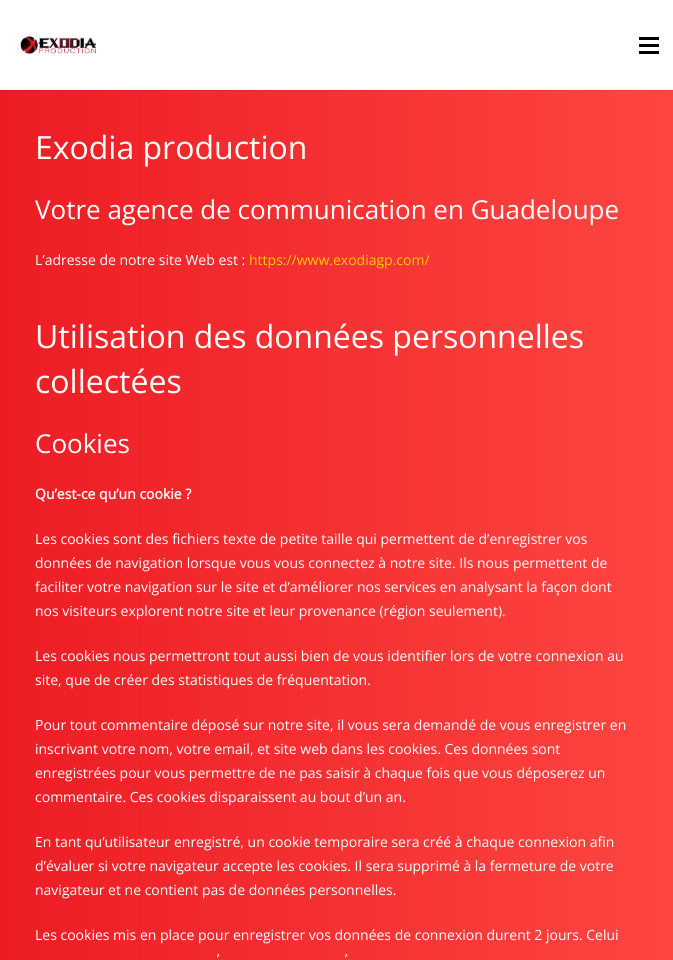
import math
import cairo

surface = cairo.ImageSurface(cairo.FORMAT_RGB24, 673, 960)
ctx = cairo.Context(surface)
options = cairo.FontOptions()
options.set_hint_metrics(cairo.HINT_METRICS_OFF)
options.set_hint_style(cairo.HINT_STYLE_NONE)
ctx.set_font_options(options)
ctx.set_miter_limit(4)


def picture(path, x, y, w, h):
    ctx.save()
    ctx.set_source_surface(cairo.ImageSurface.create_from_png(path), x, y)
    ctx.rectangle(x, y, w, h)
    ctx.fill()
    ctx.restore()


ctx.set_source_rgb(1, 1, 1)
ctx.paint()
gradient = cairo.LinearGradient(0, 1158, 673, 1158)
gradient.add_color_stop_rgba(0, 0.929, 0.11, 0.141, 1)
gradient.add_color_stop_rgba(1, 0.996, 0.275, 0.255, 1)
ctx.set_source(gradient)
ctx.rectangle(0, 91, 673, 869)
ctx.fill()
gradient = cairo.LinearGradient(0, 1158, 673, 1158)
gradient.add_color_stop_rgba(0, 0.855, 0.102, 0.129, 1)
gradient.add_color_stop_rgba(1, 0.918, 0.251, 0.235, 1)
ctx.set_source(gradient)
ctx.rectangle(0, 90, 673, 1)
ctx.fill()
picture("img1.png", 20, 36, 76, 18)
ctx.set_source_rgb(0, 0, 0)
ctx.rectangle(639, 44, 20, 3)
ctx.fill()
ctx.rectangle(639, 37, 20, 3)
ctx.fill()
ctx.rectangle(639, 51, 20, 3)
ctx.fill()
ctx.select_font_face("Open Sans")
ctx.set_font_size(32)
ctx.set_source_rgb(1, 1, 1)
ctx.move_to(35, 159)
ctx.show_text("Exodia production")
ctx.set_font_size(26)
ctx.move_to(35, 219)
ctx.show_text("Votre agence de communication en Guadeloupe")
ctx.set_font_size(14)
ctx.move_to(35, 265)
ctx.show_text("L’adresse de notre site Web est :")
ctx.set_source_rgb(1, 0.8, 0)
ctx.move_to(249, 265)
ctx.show_text("https://www.exodiagp.com/")
ctx.set_font_size(32)
ctx.set_source_rgb(1, 1, 1)
ctx.move_to(35, 348)
ctx.show_text("Utilisation des données personnelles")
ctx.move_to(35, 393)
ctx.show_text("collectées")
ctx.set_font_size(26)
ctx.move_to(35, 453)
ctx.show_text("Cookies")
ctx.select_font_face("Open Sans", cairo.FONT_SLANT_NORMAL, cairo.FONT_WEIGHT_BOLD)
ctx.set_font_size(14)
ctx.move_to(35, 499)
ctx.show_text("Qu’est-ce qu’un cookie ?")
ctx.select_font_face("Open Sans")
ctx.move_to(35, 544)
ctx.show_text("Les cookies sont des fichiers texte de petite taille qui permettent de d’enregistrer vos")
ctx.move_to(35, 568)
ctx.show_text("données de navigation lorsque vous vous connectez à notre site. Ils nous permettent de")
ctx.move_to(35, 592)
ctx.show_text("faciliter votre navigation sur le site et d’améliorer nos services en analysant la façon dont")
ctx.move_to(35, 616)
ctx.show_text("nos visiteurs explorent notre site et leur provenance (région seulement).")
ctx.move_to(35, 661)
ctx.show_text("Les cookies nous permettront tout aussi bien de vous identifier lors de votre connexion au")
ctx.move_to(35, 685)
ctx.show_text("site, que de créer des statistiques de fréquentation.")
ctx.move_to(35, 730)
ctx.show_text("Pour tout commentaire déposé sur notre site, il vous sera demandé de vous enregistrer en")
ctx.move_to(35, 754)
ctx.show_text("inscrivant votre nom, votre email, et site web dans les cookies. Ces données sont")
ctx.move_to(35, 778)
ctx.show_text("enregistrées pour vous permettre de ne pas saisir à chaque fois que vous déposerez un")
ctx.move_to(35, 802)
ctx.show_text("commentaire. Ces cookies disparaissent au bout d’un an.")
ctx.move_to(35, 847)
ctx.show_text("En tant qu’utilisateur enregistré, un cookie temporaire sera créé à chaque connexion afin")
ctx.move_to(35, 871)
ctx.show_text("d’évaluer si votre navigateur accepte les cookies. Il sera supprimé à la fermeture de votre")
ctx.move_to(35, 895)
ctx.show_text("navigateur et ne contient pas de données personnelles.")
ctx.move_to(35, 940)
ctx.show_text("Les cookies mis en place pour enregistrer vos données de connexion durent 2 jours. Celui")
ctx.move_to(217, 964)
ctx.show_text("’")
ctx.move_to(345, 964)
ctx.show_text("’")
surface.write_to_png("page.png")
